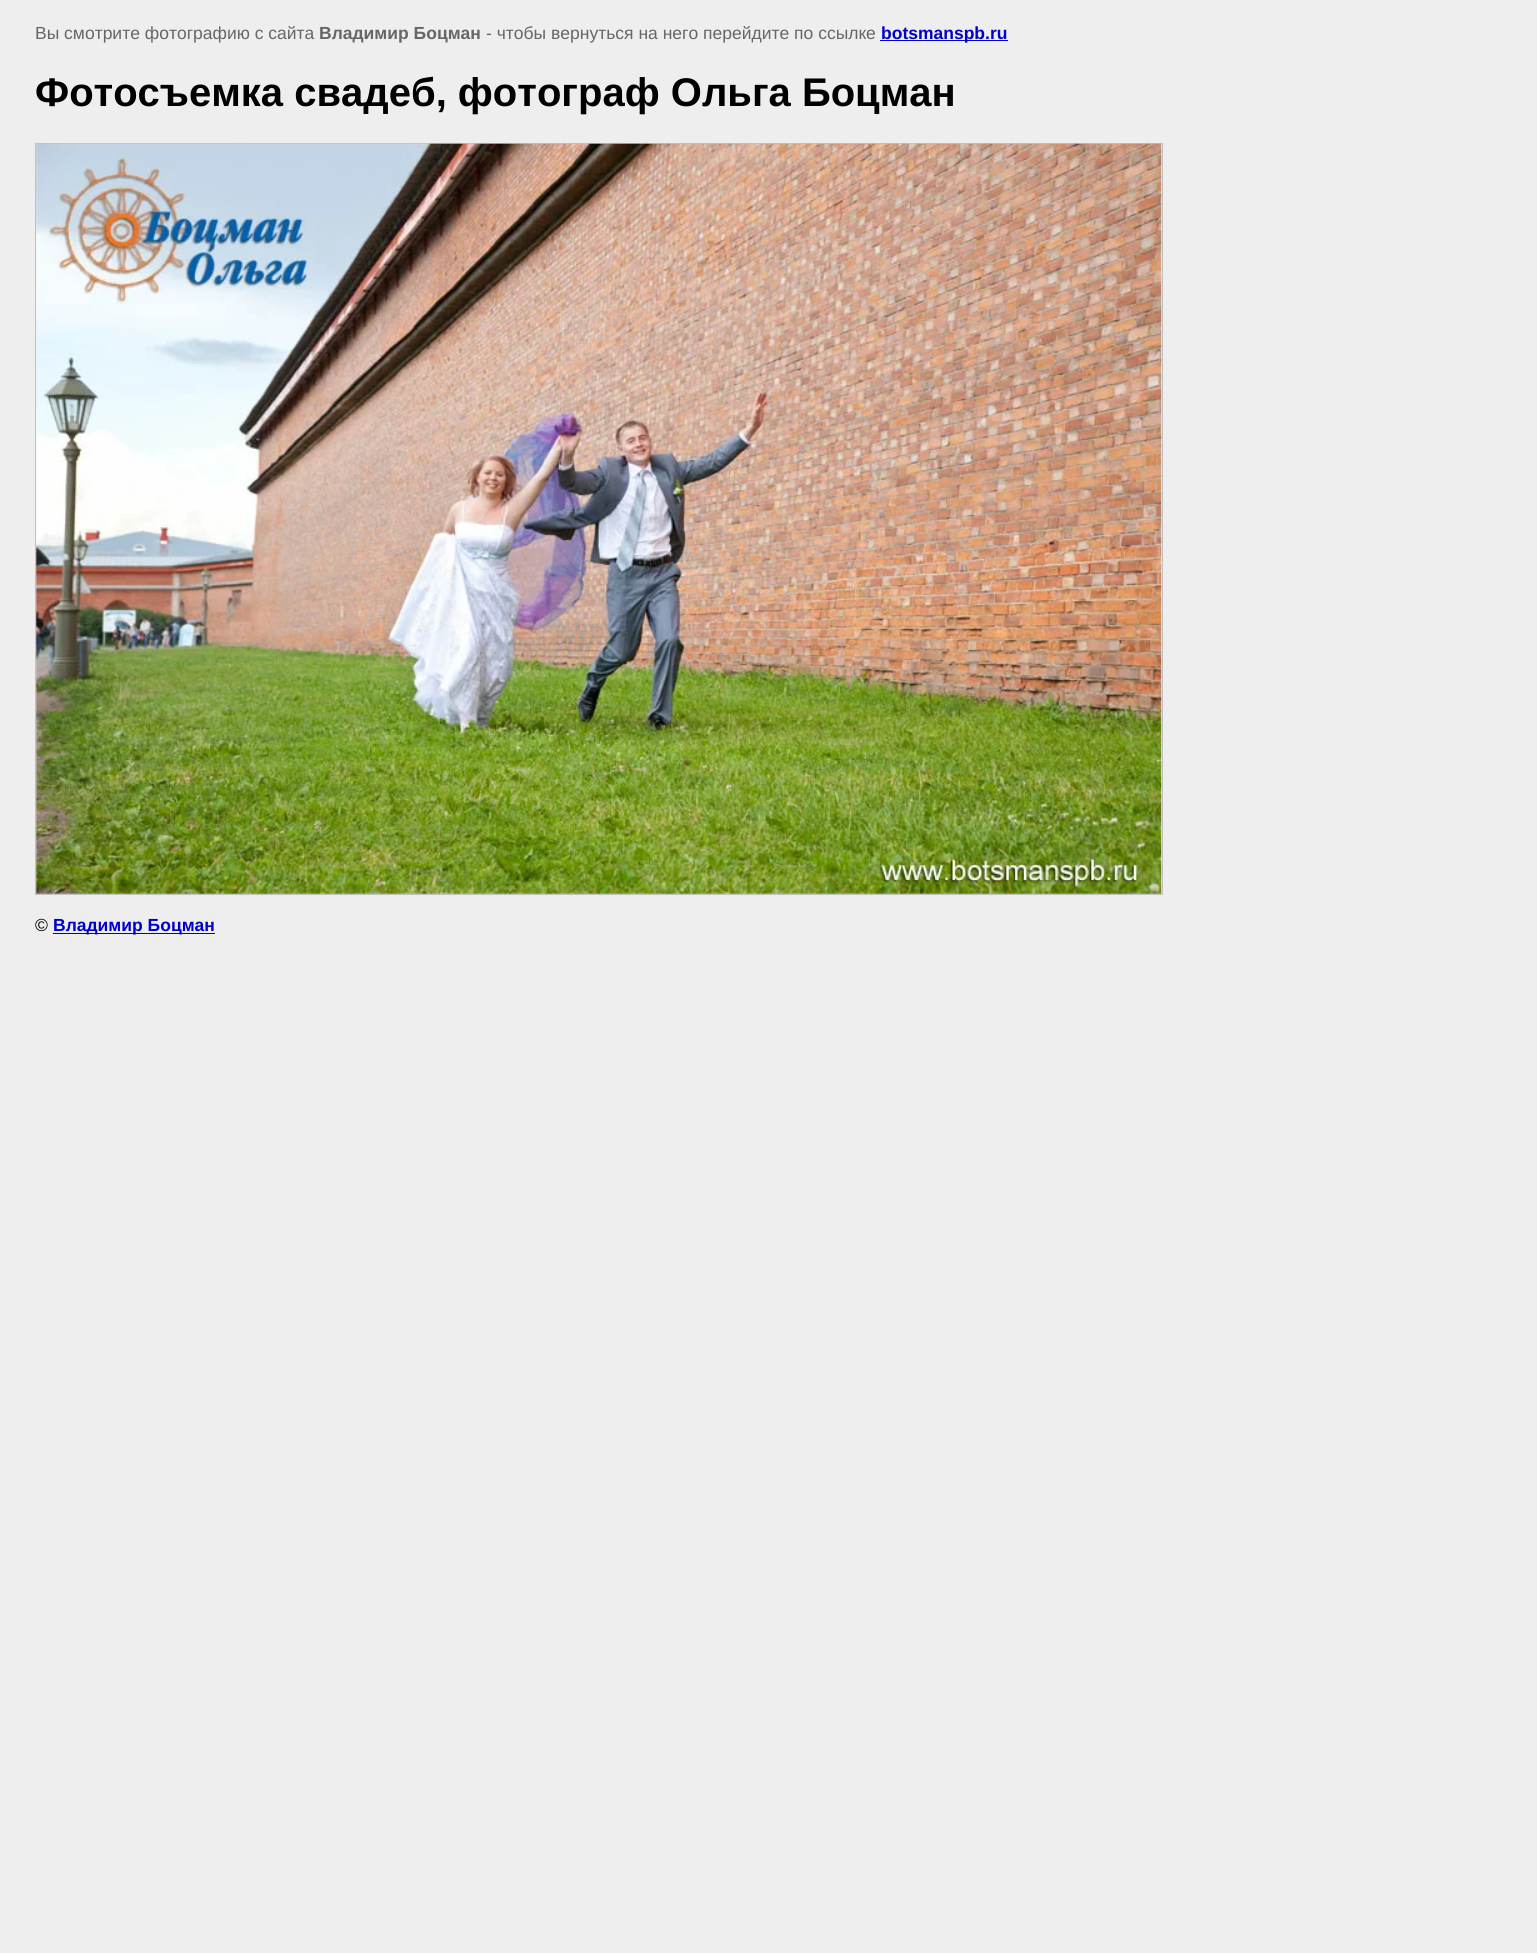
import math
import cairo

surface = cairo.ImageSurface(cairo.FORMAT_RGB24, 1537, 1953)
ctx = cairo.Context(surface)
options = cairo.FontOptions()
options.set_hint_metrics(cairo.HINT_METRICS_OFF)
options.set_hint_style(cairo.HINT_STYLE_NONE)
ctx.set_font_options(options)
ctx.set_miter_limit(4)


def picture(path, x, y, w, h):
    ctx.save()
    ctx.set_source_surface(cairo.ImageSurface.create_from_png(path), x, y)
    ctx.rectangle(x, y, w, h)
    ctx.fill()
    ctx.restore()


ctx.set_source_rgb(0.933, 0.933, 0.933)
ctx.paint()
ctx.select_font_face("Liberation Sans")
ctx.set_font_size(17.5)
ctx.set_source_rgb(0.4, 0.4, 0.4)
ctx.move_to(35, 39)
ctx.show_text("Вы смотрите фотографию с сайта")
ctx.select_font_face("Liberation Sans", cairo.FONT_SLANT_NORMAL, cairo.FONT_WEIGHT_BOLD)
ctx.move_to(319, 39)
ctx.show_text("Владимир Боцман")
ctx.select_font_face("Liberation Sans")
ctx.move_to(486, 39)
ctx.show_text("- чтобы вернуться на него перейдите по ссылке")
ctx.set_source_rgb(0, 0, 0.8)
ctx.rectangle(880, 40, 128, 1)
ctx.fill()
ctx.select_font_face("Liberation Sans", cairo.FONT_SLANT_NORMAL, cairo.FONT_WEIGHT_BOLD)
ctx.move_to(881, 39)
ctx.show_text("botsmanspb.ru")
ctx.set_font_size(40)
ctx.set_source_rgb(0, 0, 0)
ctx.move_to(35, 106)
ctx.show_text("Фотосъемка свадеб, фотограф Ольга Боцман")
ctx.rectangle(35.5, 143.5, 1127, 751)
ctx.set_source_rgb(0.753, 0.753, 0.753)
ctx.set_line_width(1)
ctx.stroke()
picture("img1.png", 36, 143, 1126, 751)
ctx.select_font_face("Liberation Sans")
ctx.set_font_size(17.5)
ctx.set_source_rgb(0, 0, 0)
ctx.move_to(35, 931)
ctx.show_text("©")
ctx.set_source_rgb(0, 0, 0.8)
ctx.rectangle(53, 933, 162, 1)
ctx.fill()
ctx.select_font_face("Liberation Sans", cairo.FONT_SLANT_NORMAL, cairo.FONT_WEIGHT_BOLD)
ctx.move_to(53, 931)
ctx.show_text("Владимир Боцман")
surface.write_to_png("page.png")
